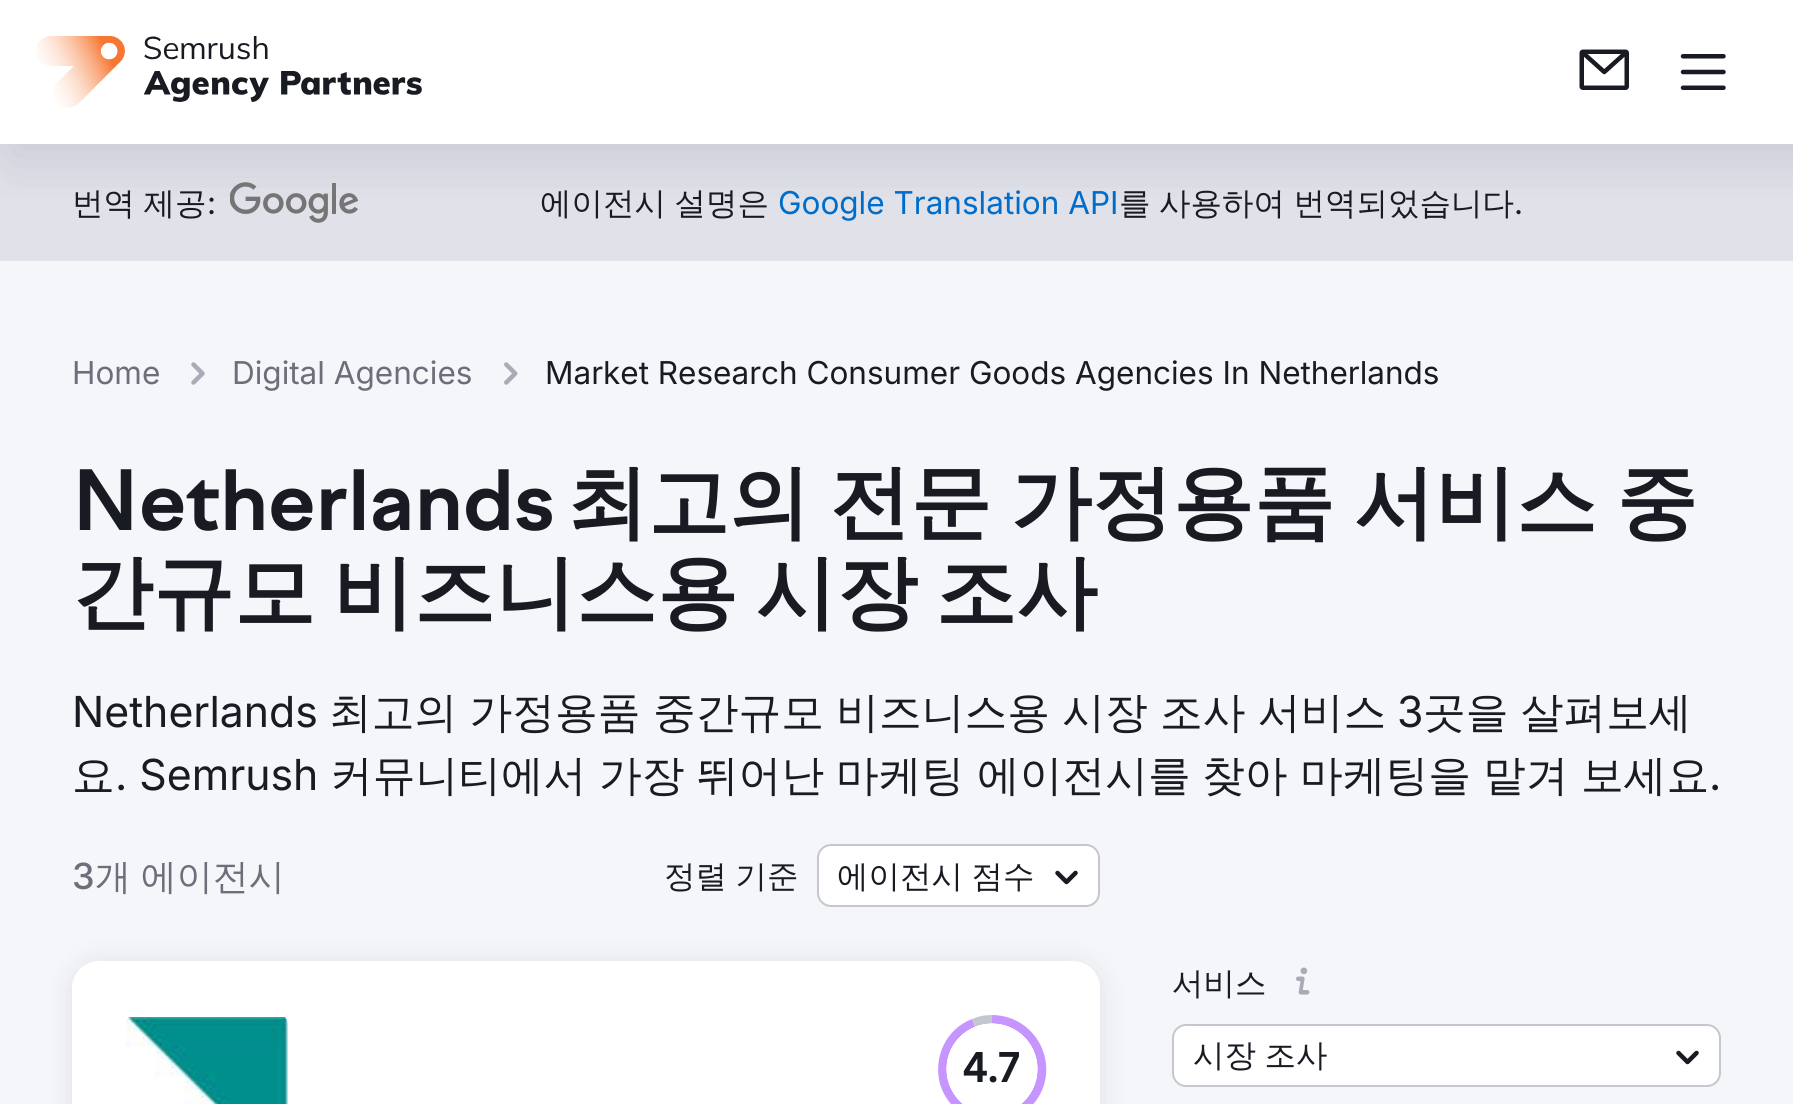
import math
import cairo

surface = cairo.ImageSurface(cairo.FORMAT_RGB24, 1793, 1104)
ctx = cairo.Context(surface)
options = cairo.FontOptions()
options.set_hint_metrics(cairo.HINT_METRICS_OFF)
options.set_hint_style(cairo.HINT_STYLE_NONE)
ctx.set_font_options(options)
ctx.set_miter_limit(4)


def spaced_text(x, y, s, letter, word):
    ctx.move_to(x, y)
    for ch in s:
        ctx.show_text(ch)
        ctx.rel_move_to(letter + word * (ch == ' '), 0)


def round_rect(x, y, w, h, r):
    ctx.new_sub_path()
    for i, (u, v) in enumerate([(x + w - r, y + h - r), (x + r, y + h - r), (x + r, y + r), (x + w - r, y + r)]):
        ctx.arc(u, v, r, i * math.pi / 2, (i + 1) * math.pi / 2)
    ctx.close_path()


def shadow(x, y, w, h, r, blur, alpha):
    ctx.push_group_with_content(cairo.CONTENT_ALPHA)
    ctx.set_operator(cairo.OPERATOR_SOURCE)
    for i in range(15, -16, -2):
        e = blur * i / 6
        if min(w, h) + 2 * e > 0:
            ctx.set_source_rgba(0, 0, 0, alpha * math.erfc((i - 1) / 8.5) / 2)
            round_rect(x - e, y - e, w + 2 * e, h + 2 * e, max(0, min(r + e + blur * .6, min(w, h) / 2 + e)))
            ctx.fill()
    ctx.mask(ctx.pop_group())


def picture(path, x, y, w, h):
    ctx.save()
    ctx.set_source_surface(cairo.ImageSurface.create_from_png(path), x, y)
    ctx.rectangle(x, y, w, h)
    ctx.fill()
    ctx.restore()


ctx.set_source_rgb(1, 1, 1)
ctx.paint()
ctx.set_source_rgb(0.878, 0.882, 0.914)
ctx.rectangle(0, 144, 1793, 117)
ctx.fill()
picture("img4.png", 230, 182, 129, 41)
ctx.save()
ctx.rectangle(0, 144, 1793, 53)
ctx.clip()
ctx.set_source_rgb(0.537, 0.553, 0.604)
shadow(11, 11, 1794, 144, 0, 28, 0.3)
ctx.restore()
picture("img1.png", 36, 36, 386, 72)
picture("img2.png", 1579, 49, 50, 41)
picture("img3.png", 1680, 54, 46, 36)
ctx.select_font_face("WenQuanYi Zen Hei Medium")
ctx.set_font_size(31.5)
ctx.set_source_rgb(0.098, 0.106, 0.137)
spaced_text(72, 214, "번역 제공", 0, -1)
ctx.select_font_face("Inter")
ctx.move_to(207, 214)
ctx.show_text(":")
ctx.select_font_face("WenQuanYi Zen Hei Medium")
spaced_text(540, 214, "에이전시 설명은", 0, -1)
ctx.select_font_face("Inter")
ctx.set_source_rgb(0, 0.427, 0.792)
ctx.move_to(778, 214)
ctx.show_text("Google Translation API")
ctx.select_font_face("WenQuanYi Zen Hei Medium")
ctx.set_source_rgb(0.098, 0.106, 0.137)
spaced_text(1119, 214, "를 사용하여 번역되었습니다", 0, -1)
ctx.select_font_face("Inter")
ctx.move_to(1514, 214)
ctx.show_text(".")
ctx.set_source_rgb(0.957, 0.961, 0.976)
ctx.rectangle(0, 261, 1793, 843)
ctx.fill()
ctx.set_source_rgb(0.424, 0.431, 0.475)
ctx.move_to(72, 384)
ctx.show_text("Home")
picture("img5.png", 191, 362, 14, 23)
ctx.move_to(232, 384)
ctx.show_text("Digital Agencies")
picture("img6.png", 504, 362, 14, 23)
ctx.set_source_rgb(0.098, 0.106, 0.137)
ctx.move_to(545, 384)
ctx.show_text("Market Research Consumer Goods Agencies In Netherlands")
ctx.select_font_face("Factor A", cairo.FONT_SLANT_NORMAL, cairo.FONT_WEIGHT_BOLD)
ctx.set_font_size(81)
ctx.move_to(72, 530)
ctx.show_text("Netherlands")
ctx.select_font_face("WenQuanYi Zen Hei", cairo.FONT_SLANT_NORMAL, cairo.FONT_WEIGHT_BOLD)
spaced_text(567, 530, "최고의 전문 가정용품 서비스 중", 0, -5)
spaced_text(72, 620, "간규모 비즈니스용 시장 조사", 0, -6.5)
ctx.select_font_face("Inter")
ctx.set_font_size(42.75)
ctx.move_to(72, 727)
ctx.show_text("Netherlands")
ctx.select_font_face("WenQuanYi Zen Hei Medium")
spaced_text(329, 727, "최고의 가정용품 중간규모 비즈니스용 시장 조사 서비스", 0, -0.5)
ctx.select_font_face("Inter")
ctx.move_to(1397, 727)
ctx.show_text("3")
ctx.select_font_face("WenQuanYi Zen Hei Medium")
spaced_text(1423, 727, "곳을 살펴보세", 0, -0.5)
ctx.move_to(72, 790)
ctx.show_text("요")
ctx.select_font_face("Inter")
ctx.move_to(115, 790)
ctx.show_text(". Semrush")
ctx.select_font_face("WenQuanYi Zen Hei Medium")
ctx.move_to(330, 790)
ctx.show_text("커뮤니티에서")
ctx.move_to(599, 790)
ctx.show_text("가장")
ctx.move_to(696, 790)
ctx.show_text("뛰어난")
ctx.move_to(836, 790)
ctx.show_text("마케팅")
ctx.move_to(977, 790)
ctx.show_text("에이전시를")
ctx.move_to(1202, 790)
ctx.show_text("찾아")
ctx.move_to(1300, 790)
ctx.show_text("마케팅을")
ctx.move_to(1483, 790)
ctx.show_text("맡겨")
ctx.move_to(1581, 790)
ctx.show_text("보세요")
ctx.select_font_face("Inter")
ctx.move_to(1709, 790)
ctx.show_text(".")
ctx.select_font_face("Inter Medium")
ctx.set_font_size(36)
ctx.set_source_rgb(0.424, 0.431, 0.475)
ctx.move_to(72, 889)
ctx.show_text("3")
ctx.select_font_face("WenQuanYi Zen Hei Medium")
spaced_text(95, 889, "개 에이전시", 0, -1)
ctx.set_font_size(31.5)
ctx.set_source_rgb(0.098, 0.106, 0.137)
spaced_text(664, 887, "정렬 기준", 0, -1)
ctx.set_source_rgb(1, 1, 1)
round_rect(818, 845, 281, 61, 13)
ctx.fill_preserve()
ctx.set_source_rgb(0.769, 0.78, 0.812)
ctx.stroke()
ctx.set_source_rgb(0.098, 0.106, 0.137)
spaced_text(837, 887, "에이전시 점수", 0, -1)
picture("img7.png", 1055, 870, 23, 15)
ctx.set_source_rgb(0.098, 0.106, 0.137)
shadow(72, 963, 1028, 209, 27, 13.5, 0.1)
ctx.set_source_rgb(1, 1, 1)
round_rect(72, 961, 1028, 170, 27)
ctx.fill()
picture("img8.png", 126, 1017, 162, 87)
ctx.set_source_rgb(0.776, 0.584, 1)
ctx.new_path()
ctx.move_to(992, 1069)
ctx.line_to(992, 1015)
ctx.curve_to(1020, 1015, 1043, 1036, 1046, 1064)
ctx.curve_to(1049, 1091, 1030, 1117, 1002, 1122)
ctx.curve_to(975, 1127, 948, 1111, 940, 1084)
ctx.curve_to(933, 1057, 946, 1029, 972, 1019)
ctx.close_path()
ctx.fill()
ctx.set_source_rgb(0.769, 0.78, 0.812)
ctx.new_path()
ctx.move_to(992, 1069)
ctx.line_to(972, 1019)
ctx.curve_to(979, 1016, 985, 1015, 992, 1015)
ctx.close_path()
ctx.fill()
gradient = cairo.RadialGradient(992, 1069, 0, 992, 1069, 54)
gradient.add_color_stop_rgba(0.84, 1, 1, 1, 1)
gradient.add_color_stop_rgba(0.85, 1, 1, 1, 0)
gradient.add_color_stop_rgba(1, 0, 0, 0, 0)
ctx.set_source(gradient)
ctx.rectangle(946, 1023, 92, 81)
ctx.fill()
ctx.select_font_face("Factor A", cairo.FONT_SLANT_NORMAL, cairo.FONT_WEIGHT_BOLD)
ctx.set_font_size(40)
ctx.set_source_rgb(0.098, 0.106, 0.137)
ctx.move_to(963, 1082)
ctx.show_text("4.7")
ctx.select_font_face("WenQuanYi Zen Hei Medium")
ctx.set_font_size(31.5)
ctx.move_to(1172, 994)
ctx.show_text("서비스")
picture("img9.png", 1296, 967, 14, 28)
ctx.set_source_rgb(1, 1, 1)
round_rect(1173, 1025, 547, 61, 13)
ctx.fill_preserve()
ctx.set_source_rgb(0.769, 0.78, 0.812)
ctx.stroke()
ctx.set_source_rgb(0.098, 0.106, 0.137)
spaced_text(1193, 1066, "시장 조사", 0, -1)
picture("img7.png", 1676, 1050, 23, 15)
surface.write_to_png("page.png")
